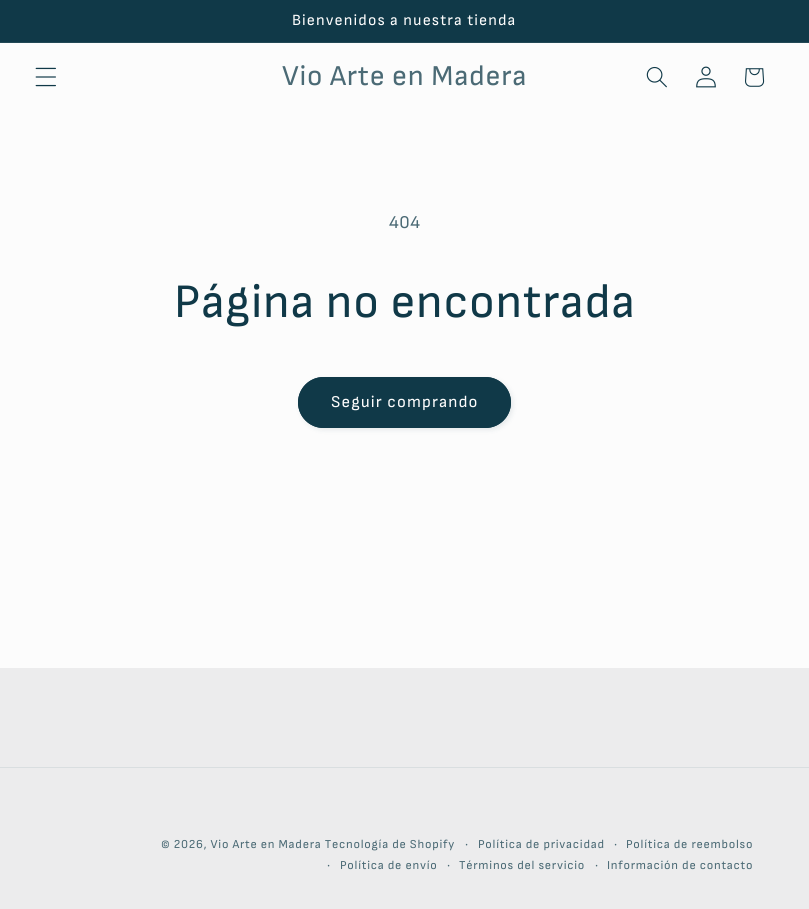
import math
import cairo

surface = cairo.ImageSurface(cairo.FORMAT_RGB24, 809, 909)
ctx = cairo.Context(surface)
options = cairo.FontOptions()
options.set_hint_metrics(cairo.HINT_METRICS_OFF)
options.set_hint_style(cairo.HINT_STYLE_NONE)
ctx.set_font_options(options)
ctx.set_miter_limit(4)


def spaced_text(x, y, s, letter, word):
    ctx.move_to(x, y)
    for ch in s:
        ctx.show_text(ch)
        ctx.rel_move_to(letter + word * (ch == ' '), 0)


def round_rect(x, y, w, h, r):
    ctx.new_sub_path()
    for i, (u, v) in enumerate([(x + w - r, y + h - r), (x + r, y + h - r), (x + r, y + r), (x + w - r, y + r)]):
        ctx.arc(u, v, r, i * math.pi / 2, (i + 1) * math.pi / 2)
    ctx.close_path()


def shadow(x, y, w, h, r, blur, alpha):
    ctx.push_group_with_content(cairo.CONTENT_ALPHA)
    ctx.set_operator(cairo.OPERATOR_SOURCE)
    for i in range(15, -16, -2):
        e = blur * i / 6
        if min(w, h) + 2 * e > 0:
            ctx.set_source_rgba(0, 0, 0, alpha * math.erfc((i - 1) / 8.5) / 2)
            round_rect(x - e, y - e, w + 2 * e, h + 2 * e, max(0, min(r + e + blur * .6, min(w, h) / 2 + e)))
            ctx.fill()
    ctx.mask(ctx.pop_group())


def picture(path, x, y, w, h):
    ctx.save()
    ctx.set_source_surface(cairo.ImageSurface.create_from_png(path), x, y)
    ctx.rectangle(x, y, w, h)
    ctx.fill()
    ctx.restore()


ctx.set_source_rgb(0.988, 0.988, 0.988)
ctx.paint()
ctx.set_source_rgb(0.063, 0.224, 0.282)
ctx.rectangle(0, 0, 809, 42)
ctx.fill()
ctx.set_source_rgb(0.137, 0.286, 0.337)
ctx.rectangle(0, 42, 809, 1)
ctx.fill()
ctx.select_font_face("Sofia Sans")
ctx.set_font_size(15.6)
ctx.set_source_rgb(0.988, 0.988, 0.988)
spaced_text(292, 25, "Bienvenidos a nuestra tienda", 1.1, 0)
picture("img1.png", 35, 67, 21, 20)
ctx.set_font_size(28.75)
ctx.set_source_rgb(0.294, 0.416, 0.459)
spaced_text(282, 85, "Vio Arte en Madera", 0.75, 0)
picture("img2.png", 646, 66, 21, 22)
picture("img3.png", 696, 66, 20, 22)
picture("img4.png", 745, 68, 20, 19)
ctx.set_font_size(18)
spaced_text(389, 228, "404", 0.5, 0)
ctx.set_font_size(48)
ctx.set_source_rgb(0.063, 0.224, 0.282)
spaced_text(174, 317, "Página no encontrada", 0.75, 0)
ctx.set_source_rgb(0.063, 0.224, 0.282)
shadow(300, 379, 213, 51, 25.5, 2.5, 0.1)
ctx.set_source_rgb(0.063, 0.224, 0.282)
round_rect(298, 377, 213, 51, 25.5)
ctx.fill()
round_rect(298.5, 377.5, 212, 50, 25)
ctx.set_line_width(1)
ctx.stroke()
ctx.set_font_size(16.5)
ctx.set_source_rgb(0.988, 0.988, 0.988)
spaced_text(331, 407, "Seguir comprando", 1.1, 0)
ctx.set_source_rgb(0.922, 0.925, 0.929)
ctx.rectangle(0, 668, 809, 241)
ctx.fill()
ctx.set_source_rgb(0.851, 0.871, 0.878)
ctx.rectangle(0, 767, 809, 1)
ctx.fill()
ctx.set_font_size(12.1)
ctx.set_source_rgb(0.294, 0.416, 0.459)
spaced_text(161, 848, "© 2026, Vio Arte en Madera Tecnología de Shopify", 0.75, 0)
ctx.set_font_size(13)
spaced_text(465, 848, "·", 0.75, 0)
ctx.set_font_size(12.1)
spaced_text(478, 848, "Política de privacidad", 0.75, 0)
ctx.set_font_size(13)
spaced_text(614, 848, "·", 0.75, 0)
ctx.set_font_size(12.1)
spaced_text(626, 848, "Política de reembolso", 0.75, 0)
ctx.set_font_size(13)
spaced_text(327, 869, "·", 0.75, 0)
ctx.set_font_size(12.1)
spaced_text(340, 869, "Política de envío", 0.75, 0)
ctx.set_font_size(13)
spaced_text(447, 869, "·", 0.75, 0)
ctx.set_font_size(12.1)
spaced_text(459, 869, "Términos del servicio", 0.75, 0)
ctx.set_font_size(13)
spaced_text(595, 869, "·", 0.75, 0)
ctx.set_font_size(12.1)
spaced_text(607, 869, "Información de contacto", 0.75, 0)
surface.write_to_png("page.png")
